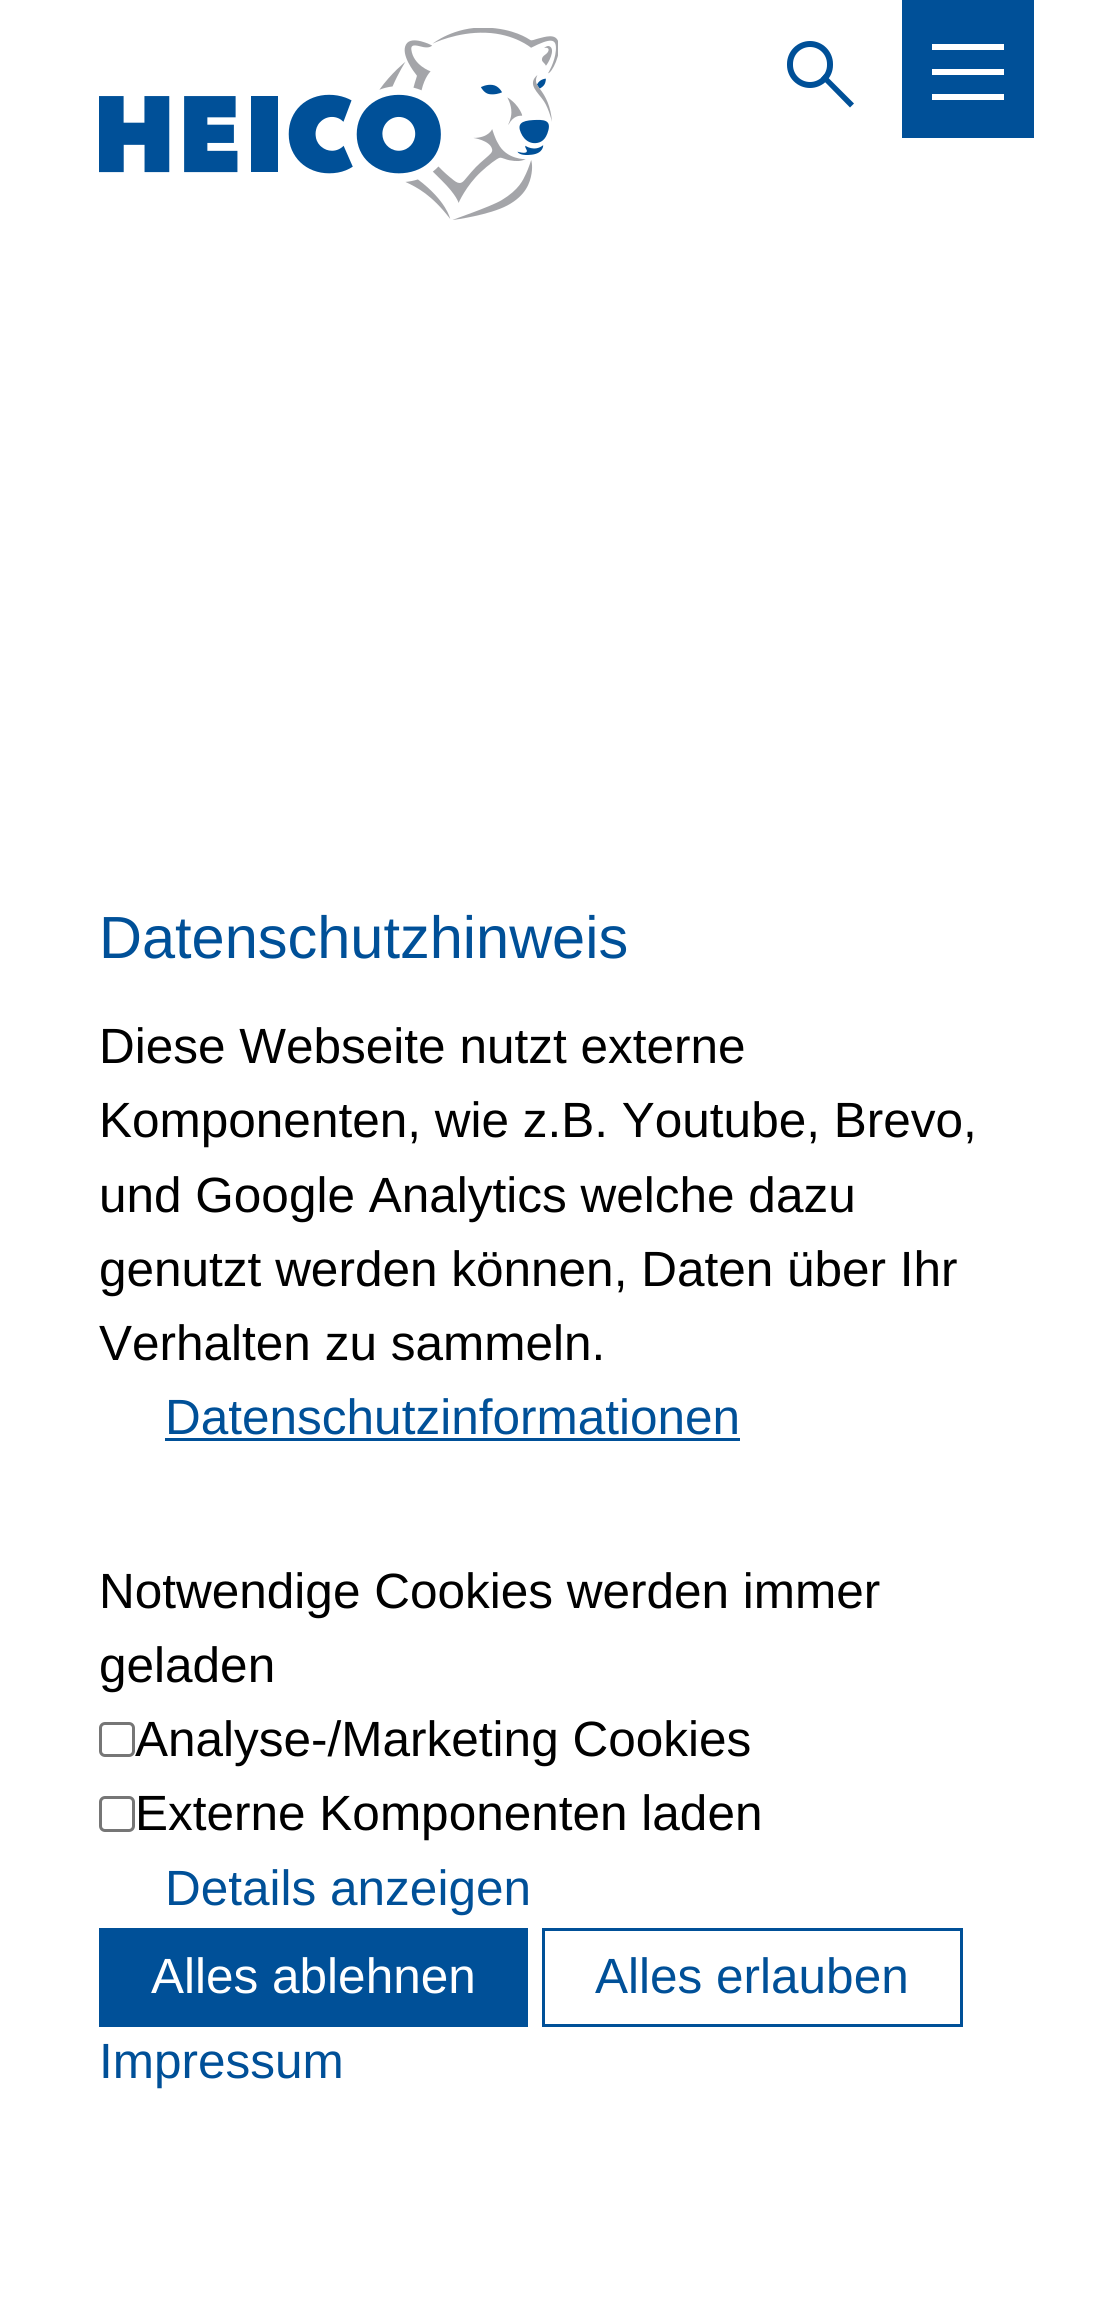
import math
import cairo

surface = cairo.ImageSurface(cairo.FORMAT_RGB24, 1108, 2299)
ctx = cairo.Context(surface)
options = cairo.FontOptions()
options.set_hint_metrics(cairo.HINT_METRICS_OFF)
options.set_hint_style(cairo.HINT_STYLE_NONE)
ctx.set_font_options(options)
ctx.set_miter_limit(4)


def round_rect(x, y, w, h, r):
    ctx.new_sub_path()
    for i, (u, v) in enumerate([(x + w - r, y + h - r), (x + r, y + h - r), (x + r, y + r), (x + w - r, y + r)]):
        ctx.arc(u, v, r, i * math.pi / 2, (i + 1) * math.pi / 2)
    ctx.close_path()


def picture(path, x, y, w, h):
    ctx.save()
    ctx.set_source_surface(cairo.ImageSurface.create_from_png(path), x, y)
    ctx.rectangle(x, y, w, h)
    ctx.fill()
    ctx.restore()


ctx.set_source_rgb(1, 1, 1)
ctx.paint()
picture("img1.png", 99, 28, 459, 192)
round_rect(790, 44, 40, 41, 20)
ctx.set_source_rgb(0, 0.314, 0.596)
ctx.set_line_width(6)
ctx.stroke()
ctx.new_path()
ctx.move_to(824.5, 74)
ctx.line_to(854, 103.5)
ctx.line_to(850, 107.5)
ctx.line_to(821, 78)
ctx.close_path()
ctx.fill()
ctx.rectangle(902, 0, 132, 138)
ctx.fill()
ctx.set_source_rgb(1, 1, 1)
ctx.rectangle(932, 44, 72, 6)
ctx.fill()
ctx.rectangle(932, 69, 72, 6)
ctx.fill()
ctx.rectangle(932, 94, 72, 6)
ctx.fill()
ctx.select_font_face("Liberation Sans")
ctx.set_font_size(59.5)
ctx.set_source_rgb(0, 0.314, 0.596)
ctx.move_to(99, 958)
ctx.show_text("Datenschutzhinweis")
ctx.set_font_size(49.5)
ctx.set_source_rgb(0, 0, 0)
ctx.move_to(99, 1063)
ctx.show_text("Diese Webseite nutzt externe")
ctx.move_to(99, 1137)
ctx.show_text("Komponenten, wie z.B. Youtube, Brevo,")
ctx.move_to(99, 1212)
ctx.show_text("und Google Analytics welche dazu")
ctx.move_to(99, 1286)
ctx.show_text("genutzt werden können, Daten über Ihr")
ctx.move_to(99, 1360)
ctx.show_text("Verhalten zu sammeln.")
ctx.set_source_rgb(0, 0.314, 0.596)
ctx.move_to(165, 1434)
ctx.show_text("Datenschutzinformationen")
ctx.rectangle(165, 1438, 575, 3)
ctx.fill()
ctx.set_source_rgb(0, 0, 0)
ctx.move_to(99, 1608)
ctx.show_text("Notwendige Cookies werden immer")
ctx.move_to(99, 1682)
ctx.show_text("geladen")
round_rect(100.5, 1723.5, 33, 32, 4.5)
ctx.set_source_rgb(0.463, 0.463, 0.463)
ctx.set_line_width(3)
ctx.stroke()
ctx.set_source_rgb(0, 0, 0)
ctx.move_to(135, 1756)
ctx.show_text("Analyse-/Marketing Cookies")
round_rect(100.5, 1797.5, 33, 33, 4.5)
ctx.set_source_rgb(0.463, 0.463, 0.463)
ctx.stroke()
ctx.set_source_rgb(0, 0, 0)
ctx.move_to(135, 1830)
ctx.show_text("Externe Komponenten laden")
ctx.set_source_rgb(0, 0.314, 0.596)
ctx.move_to(165, 1905)
ctx.show_text("Details anzeigen")
ctx.rectangle(99, 1928, 429, 99)
ctx.fill()
ctx.set_source_rgb(1, 1, 1)
ctx.move_to(151, 1993)
ctx.show_text("Alles ablehnen")
ctx.rectangle(543.5, 1929.5, 418, 96)
ctx.set_source_rgb(0, 0.314, 0.596)
ctx.stroke()
ctx.move_to(595, 1993)
ctx.show_text("Alles erlauben")
ctx.move_to(99, 2078)
ctx.show_text("Impressum")
surface.write_to_png("page.png")
